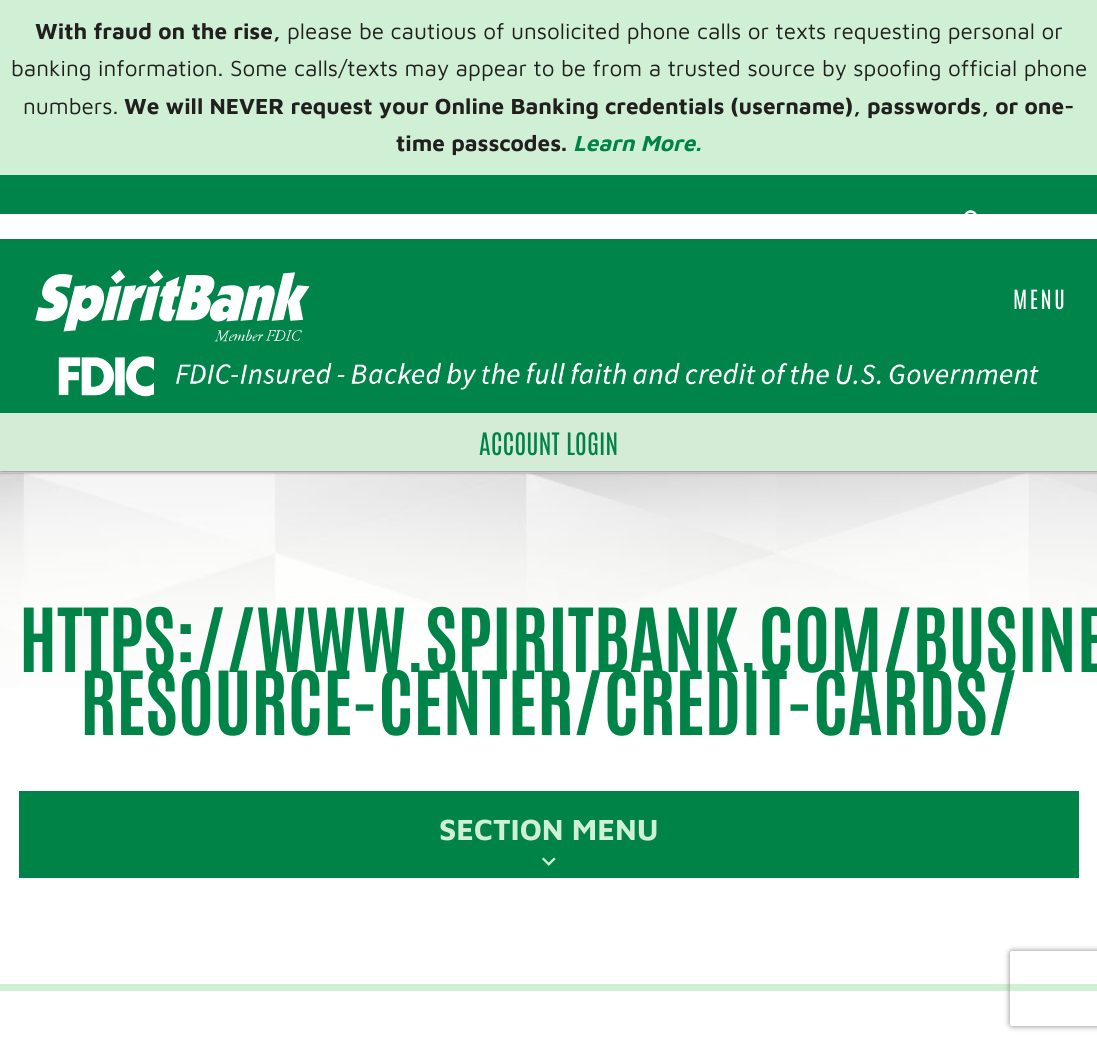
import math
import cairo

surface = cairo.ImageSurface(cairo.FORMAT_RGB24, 1097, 1043)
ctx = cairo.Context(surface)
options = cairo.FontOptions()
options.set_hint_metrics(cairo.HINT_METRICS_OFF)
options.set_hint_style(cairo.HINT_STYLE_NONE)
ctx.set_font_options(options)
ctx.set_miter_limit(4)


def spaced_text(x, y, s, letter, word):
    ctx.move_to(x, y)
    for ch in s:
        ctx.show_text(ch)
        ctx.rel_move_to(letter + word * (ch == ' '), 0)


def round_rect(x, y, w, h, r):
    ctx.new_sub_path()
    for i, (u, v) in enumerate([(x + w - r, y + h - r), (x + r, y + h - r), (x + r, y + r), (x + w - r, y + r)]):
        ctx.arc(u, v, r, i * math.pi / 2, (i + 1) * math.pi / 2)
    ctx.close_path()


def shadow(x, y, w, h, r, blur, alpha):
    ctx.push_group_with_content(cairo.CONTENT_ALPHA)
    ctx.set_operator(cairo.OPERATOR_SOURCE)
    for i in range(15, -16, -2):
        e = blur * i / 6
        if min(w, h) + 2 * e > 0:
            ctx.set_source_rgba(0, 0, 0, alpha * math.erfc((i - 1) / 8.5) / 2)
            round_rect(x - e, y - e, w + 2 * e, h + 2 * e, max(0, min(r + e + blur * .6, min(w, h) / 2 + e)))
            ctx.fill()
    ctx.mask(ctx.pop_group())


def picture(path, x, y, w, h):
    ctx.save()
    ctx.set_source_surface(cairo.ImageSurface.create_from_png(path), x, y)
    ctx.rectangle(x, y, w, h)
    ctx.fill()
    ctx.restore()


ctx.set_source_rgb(1, 1, 1)
ctx.paint()
ctx.set_source_rgb(0.812, 0.941, 0.831)
ctx.rectangle(0, 0, 1097, 175)
ctx.fill()
ctx.select_font_face("Maven Pro", cairo.FONT_SLANT_NORMAL, cairo.FONT_WEIGHT_BOLD)
ctx.set_font_size(22.5)
ctx.set_source_rgb(0.133, 0.122, 0.122)
ctx.move_to(35, 39)
ctx.show_text("With fraud on the rise,")
ctx.select_font_face("Maven Pro")
ctx.move_to(287, 39)
ctx.show_text("please be cautious of unsolicited phone calls or texts requesting personal or")
ctx.move_to(11, 76)
ctx.show_text("banking information. Some calls/texts may appear to be from a trusted source by spoofing official phone")
ctx.move_to(23, 114)
ctx.show_text("numbers.")
ctx.select_font_face("Maven Pro", cairo.FONT_SLANT_NORMAL, cairo.FONT_WEIGHT_BOLD)
ctx.move_to(124, 114)
ctx.show_text("We will NEVER request your Online Banking credentials (username), passwords, or one-")
ctx.move_to(396, 151)
ctx.show_text("time passcodes.")
ctx.select_font_face("Maven Pro", cairo.FONT_SLANT_ITALIC, cairo.FONT_WEIGHT_BOLD)
ctx.set_source_rgb(0, 0.514, 0.278)
ctx.move_to(573, 151)
ctx.show_text("Learn More.")
ctx.set_source_rgb(0.933, 0.933, 0.933)
ctx.rectangle(0, 471, 1097, 1)
ctx.fill()
ctx.set_source_rgb(0.004, 0.518, 0.286)
ctx.rectangle(0, 175, 1097, 39)
ctx.fill()
picture("img1.png", 964, 210, 13, 4)
ctx.set_source_rgb(0, 0.518, 0.29)
ctx.rectangle(0, 239, 1097, 174)
ctx.fill()
picture("img2.png", 35, 269, 275, 73)
ctx.select_font_face("Antonio")
ctx.set_source_rgb(1, 1, 1)
spaced_text(1013, 309, "MENU", 2.5, 0)
picture("img3.png", 58, 356, 981, 41)
picture("img4.png", 0, 473, 1097, 215)
ctx.set_source_rgb(0, 0, 0)
shadow(0, 414, 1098, 59, 0, 1, 0.24)
shadow(0, 414, 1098, 59, 0, 2, 0.12)
ctx.set_source_rgb(0.831, 0.918, 0.835)
ctx.rectangle(0, 413, 1097, 58)
ctx.fill()
ctx.set_font_size(26.25)
ctx.set_source_rgb(0, 0.514, 0.278)
ctx.move_to(479, 455)
ctx.show_text("ACCOUNT LOGIN")
ctx.set_source_rgb(0.812, 0.941, 0.831)
ctx.rectangle(0, 984, 1097, 7)
ctx.fill()
ctx.select_font_face("Antonio", cairo.FONT_SLANT_NORMAL, cairo.FONT_WEIGHT_BOLD)
ctx.set_font_size(75)
ctx.set_source_rgb(0, 0.514, 0.278)
ctx.move_to(19, 672)
ctx.show_text("HTTPS://WWW.SPIRITBANK.COM/BUSINE")
ctx.move_to(80, 735)
ctx.show_text("RESOURCE-CENTER/CREDIT-CARDS/")
ctx.rectangle(19, 791, 1060, 87)
ctx.fill()
ctx.select_font_face("Maven Pro", cairo.FONT_SLANT_NORMAL, cairo.FONT_WEIGHT_BOLD)
ctx.set_font_size(30)
ctx.set_source_rgb(0.812, 0.941, 0.831)
ctx.move_to(439, 840)
ctx.show_text("SECTION MENU")
picture("img5.png", 542, 857, 14, 9)
ctx.save()
ctx.set_fill_rule(cairo.FILL_RULE_EVEN_ODD)
ctx.new_path()
ctx.move_to(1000, 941)
ctx.line_to(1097, 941)
ctx.line_to(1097, 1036)
ctx.line_to(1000, 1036)
ctx.close_path()
ctx.move_to(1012.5, 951)
ctx.line_to(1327.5, 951)
ctx.curve_to(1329, 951, 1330, 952, 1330, 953.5)
ctx.line_to(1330, 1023.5)
ctx.curve_to(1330, 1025, 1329, 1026, 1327.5, 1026)
ctx.line_to(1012.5, 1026)
ctx.curve_to(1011, 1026, 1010, 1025, 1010, 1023.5)
ctx.line_to(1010, 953.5)
ctx.curve_to(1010, 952, 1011, 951, 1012.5, 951)
ctx.close_path()
ctx.clip()
ctx.set_source_rgb(0.502, 0.502, 0.502)
shadow(1010, 951, 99, 75, 2.5, 3, 1)
ctx.restore()
surface.write_to_png("page.png")
